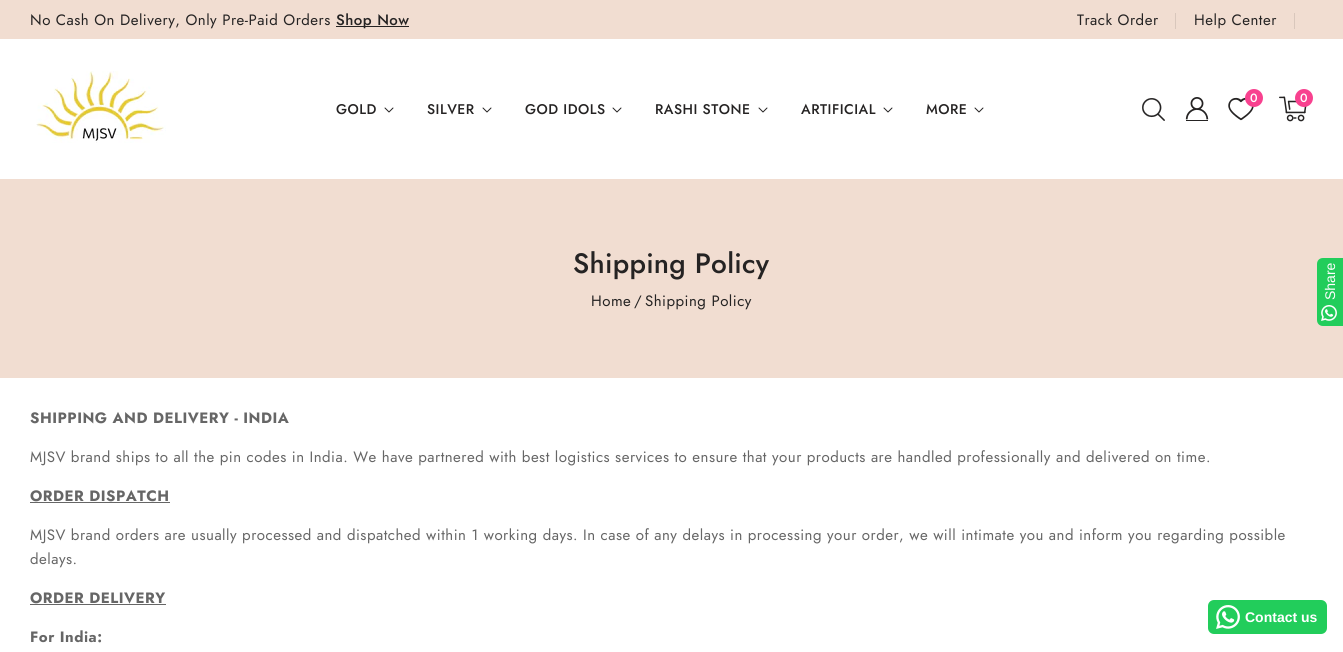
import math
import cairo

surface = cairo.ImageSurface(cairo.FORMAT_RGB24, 1343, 652)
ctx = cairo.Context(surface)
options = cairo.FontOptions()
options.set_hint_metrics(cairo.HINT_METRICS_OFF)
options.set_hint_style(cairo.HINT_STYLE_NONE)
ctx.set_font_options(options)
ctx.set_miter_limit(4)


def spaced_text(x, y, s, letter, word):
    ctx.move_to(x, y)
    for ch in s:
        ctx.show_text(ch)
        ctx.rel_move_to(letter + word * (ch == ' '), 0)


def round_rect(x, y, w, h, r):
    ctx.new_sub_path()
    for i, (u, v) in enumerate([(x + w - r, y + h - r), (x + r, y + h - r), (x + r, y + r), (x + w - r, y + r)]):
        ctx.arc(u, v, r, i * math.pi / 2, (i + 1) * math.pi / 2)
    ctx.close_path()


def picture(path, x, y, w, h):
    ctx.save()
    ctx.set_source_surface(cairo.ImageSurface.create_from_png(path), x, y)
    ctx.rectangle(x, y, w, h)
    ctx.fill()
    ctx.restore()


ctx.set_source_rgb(1, 1, 1)
ctx.paint()
ctx.set_source_rgb(0.945, 0.867, 0.82)
ctx.rectangle(0, 0, 1343, 39)
ctx.fill()
ctx.select_font_face("Jost")
ctx.set_font_size(15)
ctx.set_source_rgb(0.145, 0.137, 0.137)
spaced_text(30, 25, "No Cash On Delivery, Only Pre-Paid Orders", 0.5, 0)
ctx.rectangle(336, 26, 73, 1)
ctx.fill()
ctx.select_font_face("Jost Medium")
spaced_text(336, 25, "Shop Now", 0.5, 0)
ctx.select_font_face("Jost")
spaced_text(1077, 25, "Track Order", 0.5, 0)
ctx.set_source_rgb(0.851, 0.78, 0.737)
ctx.rectangle(1175, 13, 1, 16)
ctx.fill()
ctx.set_source_rgb(0.145, 0.137, 0.137)
spaced_text(1194, 25, "Help Center", 0.5, 0)
ctx.set_source_rgb(0.851, 0.78, 0.737)
ctx.rectangle(1294, 13, 1, 16)
ctx.fill()
picture("img1.png", 36, 71, 130, 72)
picture("img2.png", 1142, 98, 23, 23)
picture("img3.png", 1185, 97, 24, 24)
picture("img4.png", 1228, 97, 26, 24)
ctx.set_source_rgb(0.969, 0.255, 0.561)
ctx.arc(1254, 98, 9, 0, 2 * math.pi)
ctx.fill()
ctx.select_font_face("Jost Medium")
ctx.set_font_size(12)
ctx.set_source_rgb(1, 1, 1)
spaced_text(1250, 102, "0", 0.5, 0)
picture("img5.png", 1279, 96, 28, 26)
ctx.set_source_rgb(0.969, 0.255, 0.561)
ctx.arc(1304, 98, 9, 0, 2 * math.pi)
ctx.fill()
ctx.set_source_rgb(1, 1, 1)
spaced_text(1300, 102, "0", 0.5, 0)
ctx.set_font_size(14)
ctx.set_source_rgb(0.145, 0.137, 0.137)
spaced_text(336, 114, "GOLD", 0.5, 0)
picture("img6.png", 384, 107, 10, 6)
spaced_text(427, 114, "SILVER", 0.5, 0)
picture("img6.png", 482, 107, 10, 6)
spaced_text(525, 114, "GOD IDOLS", 0.5, 0)
picture("img6.png", 612, 107, 10, 6)
spaced_text(655, 114, "RASHI STONE", 0.5, 0)
picture("img6.png", 758, 107, 10, 6)
spaced_text(801, 114, "ARTIFICIAL", 0.5, 0)
picture("img6.png", 883, 107, 10, 6)
spaced_text(926, 114, "MORE", 0.5, 0)
picture("img6.png", 974, 107, 10, 6)
ctx.set_source_rgb(0.945, 0.867, 0.82)
ctx.rectangle(0, 179, 1343, 199)
ctx.fill()
ctx.set_font_size(28)
ctx.set_source_rgb(0.145, 0.137, 0.137)
spaced_text(573, 273, "Shipping Policy", 0.25, 0)
ctx.select_font_face("Jost")
ctx.set_font_size(15)
spaced_text(591, 306, "Home", 0.5, 0)
spaced_text(634, 306, "/", 0.5, 0)
spaced_text(645, 306, "Shipping Policy", 0.5, 0)
ctx.set_source_rgb(0.133, 0.804, 0.357)
ctx.new_path()
ctx.move_to(1323, 258)
ctx.line_to(1343, 258)
ctx.line_to(1343, 326)
ctx.line_to(1323, 326)
ctx.curve_to(1319.5, 326, 1317, 323.5, 1317, 320)
ctx.line_to(1317, 264)
ctx.curve_to(1317, 260.5, 1319.5, 258, 1323, 258)
ctx.close_path()
ctx.fill()
ctx.select_font_face("Liberation Sans")
ctx.set_font_size(14)
ctx.set_source_rgb(1, 1, 1)
ctx.save()
ctx.translate(1335, 300)
ctx.rotate(-90 * math.pi / 180)
ctx.move_to(0, 0)
ctx.show_text("Share")
ctx.restore()
picture("img7.png", 1321, 305, 16, 16)
ctx.select_font_face("Jost", cairo.FONT_SLANT_NORMAL, cairo.FONT_WEIGHT_BOLD)
ctx.set_font_size(15)
ctx.set_source_rgb(0.4, 0.4, 0.4)
spaced_text(30, 423, "SHIPPING AND DELIVERY - INDIA", 0.5, 0)
ctx.select_font_face("Jost")
spaced_text(30, 462, "MJSV brand ships to all the pin codes in India. We have partnered with best logistics services to ensure that your products are handled professionally and delivered on time.", 0.5, 0)
ctx.select_font_face("Jost", cairo.FONT_SLANT_NORMAL, cairo.FONT_WEIGHT_BOLD)
spaced_text(30, 501, "ORDER DISPATCH", 0.5, 0)
ctx.rectangle(30, 502, 140, 1)
ctx.fill()
ctx.select_font_face("Jost")
spaced_text(30, 540, "MJSV brand orders are usually processed and dispatched within 1 working days. In case of any delays in processing your order, we will intimate you and inform you regarding possible", 0.5, 0)
spaced_text(30, 564, "delays.", 0.5, 0)
ctx.select_font_face("Jost", cairo.FONT_SLANT_NORMAL, cairo.FONT_WEIGHT_BOLD)
spaced_text(30, 603, "ORDER DELIVERY", 0.5, 0)
ctx.rectangle(30, 604, 136, 1)
ctx.fill()
spaced_text(30, 642, "For India:", 0.5, 0)
ctx.set_source_rgb(0.133, 0.804, 0.357)
round_rect(1208, 600, 119, 34, 6)
ctx.fill()
picture("img8.png", 1216, 605, 24, 24)
ctx.select_font_face("Liberation Sans", cairo.FONT_SLANT_NORMAL, cairo.FONT_WEIGHT_BOLD)
ctx.set_font_size(14)
ctx.set_source_rgb(1, 1, 1)
ctx.move_to(1245, 622)
ctx.show_text("Contact us")
surface.write_to_png("page.png")
